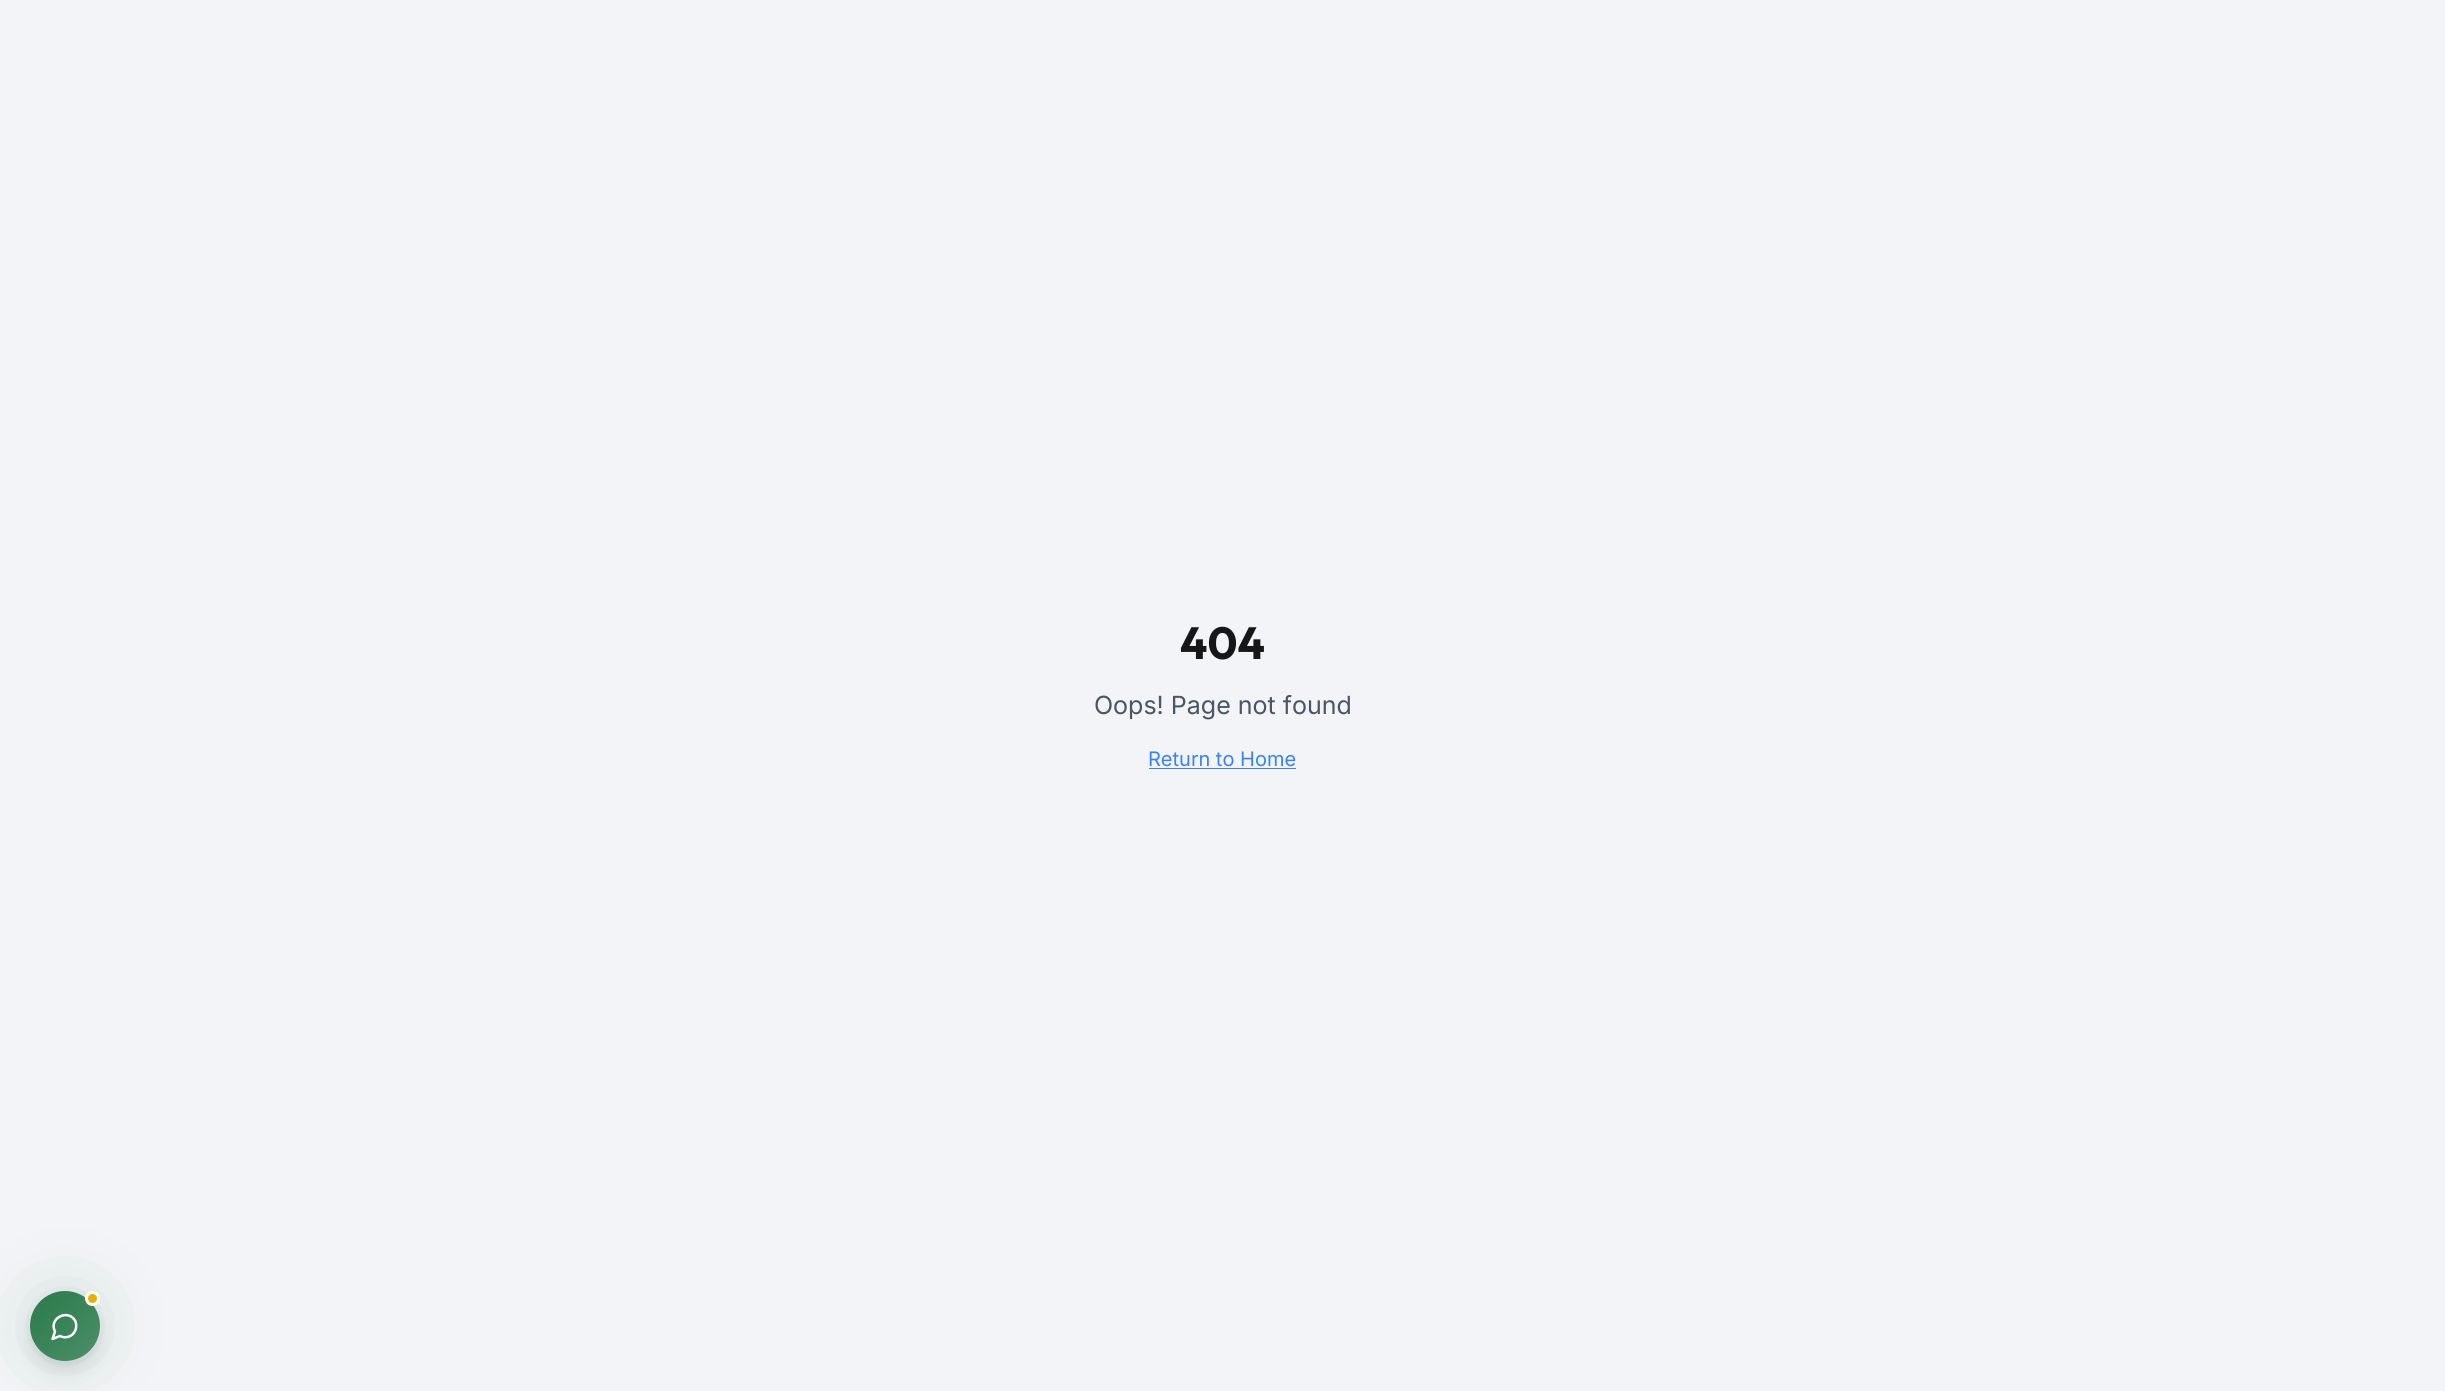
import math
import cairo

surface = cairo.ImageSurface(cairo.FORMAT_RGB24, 2445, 1391)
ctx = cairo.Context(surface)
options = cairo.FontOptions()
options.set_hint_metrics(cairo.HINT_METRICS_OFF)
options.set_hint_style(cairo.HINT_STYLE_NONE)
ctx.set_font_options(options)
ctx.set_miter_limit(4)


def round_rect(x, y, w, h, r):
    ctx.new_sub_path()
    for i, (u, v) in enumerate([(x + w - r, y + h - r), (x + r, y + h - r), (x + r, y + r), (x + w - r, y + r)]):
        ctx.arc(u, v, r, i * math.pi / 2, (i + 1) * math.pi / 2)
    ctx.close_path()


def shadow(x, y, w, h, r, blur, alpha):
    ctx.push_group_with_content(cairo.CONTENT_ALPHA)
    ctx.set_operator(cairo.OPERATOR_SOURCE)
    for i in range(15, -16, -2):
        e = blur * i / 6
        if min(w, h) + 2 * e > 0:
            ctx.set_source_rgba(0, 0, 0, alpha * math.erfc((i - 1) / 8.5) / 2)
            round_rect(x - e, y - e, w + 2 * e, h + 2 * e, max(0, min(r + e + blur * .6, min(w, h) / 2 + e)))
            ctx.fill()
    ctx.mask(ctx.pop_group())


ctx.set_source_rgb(0.953, 0.957, 0.965)
ctx.paint()
ctx.select_font_face("Outfit", cairo.FONT_SLANT_NORMAL, cairo.FONT_WEIGHT_BOLD)
ctx.set_font_size(45)
ctx.set_source_rgb(0.09, 0.09, 0.09)
ctx.move_to(1180, 659)
ctx.show_text("404")
ctx.select_font_face("Inter")
ctx.set_font_size(25)
ctx.set_source_rgb(0.294, 0.333, 0.388)
ctx.move_to(1094, 714)
ctx.show_text("Oops! Page not found")
ctx.set_font_size(20)
ctx.set_source_rgb(0.231, 0.51, 0.965)
ctx.move_to(1148, 766)
ctx.show_text("Return to Home")
ctx.rectangle(1149, 768, 147, 1)
ctx.fill()
ctx.set_source_rgb(0.161, 0.478, 0.294)
shadow(30, 1291, 70, 70, 35, 30, 0.2)
ctx.save()
ctx.set_fill_rule(cairo.FILL_RULE_EVEN_ODD)
ctx.new_path()
ctx.move_to(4, 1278)
ctx.line_to(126, 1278)
ctx.line_to(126, 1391)
ctx.line_to(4, 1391)
ctx.close_path()
ctx.move_to(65, 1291)
ctx.curve_to(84.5, 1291, 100, 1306.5, 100, 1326)
ctx.curve_to(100, 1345.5, 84.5, 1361, 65, 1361)
ctx.curve_to(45.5, 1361, 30, 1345.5, 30, 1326)
ctx.curve_to(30, 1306.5, 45.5, 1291, 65, 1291)
ctx.close_path()
ctx.clip()
ctx.set_source_rgb(0, 0, 0)
shadow(34, 1308, 62, 62, 31, 9.5, 0.1)
ctx.restore()
gradient = cairo.LinearGradient(30, 1291, 100, 1361)
gradient.add_color_stop_rgba(0, 0.161, 0.478, 0.294, 1)
gradient.add_color_stop_rgba(1, 0.161, 0.478, 0.294, 0.8)
ctx.set_source(gradient)
ctx.arc(65, 1326, 35, 0, 2 * math.pi)
ctx.fill()
ctx.new_path()
ctx.move_to(60, 1336)
ctx.curve_to(65.5, 1339, 72.5, 1336.5, 75, 1331)
ctx.curve_to(76.5, 1328, 76.5, 1324.5, 75.5, 1321.5)
ctx.curve_to(69, 1308, 48, 1318, 55, 1331.5)
ctx.line_to(52.5, 1339)
ctx.close_path()
ctx.set_source_rgb(1, 1, 1)
ctx.set_line_width(2.5)
ctx.set_line_cap(cairo.LINE_CAP_ROUND)
ctx.set_line_join(cairo.LINE_JOIN_ROUND)
ctx.stroke()
ctx.set_source_rgb(0.906, 0.69, 0.031)
ctx.arc(92.5, 1298.5, 6, 0, 2 * math.pi)
ctx.fill_preserve()
ctx.set_source_rgb(1, 1, 1)
ctx.set_line_width(3)
ctx.set_line_cap(cairo.LINE_CAP_BUTT)
ctx.set_line_join(cairo.LINE_JOIN_MITER)
ctx.stroke()
surface.write_to_png("page.png")
